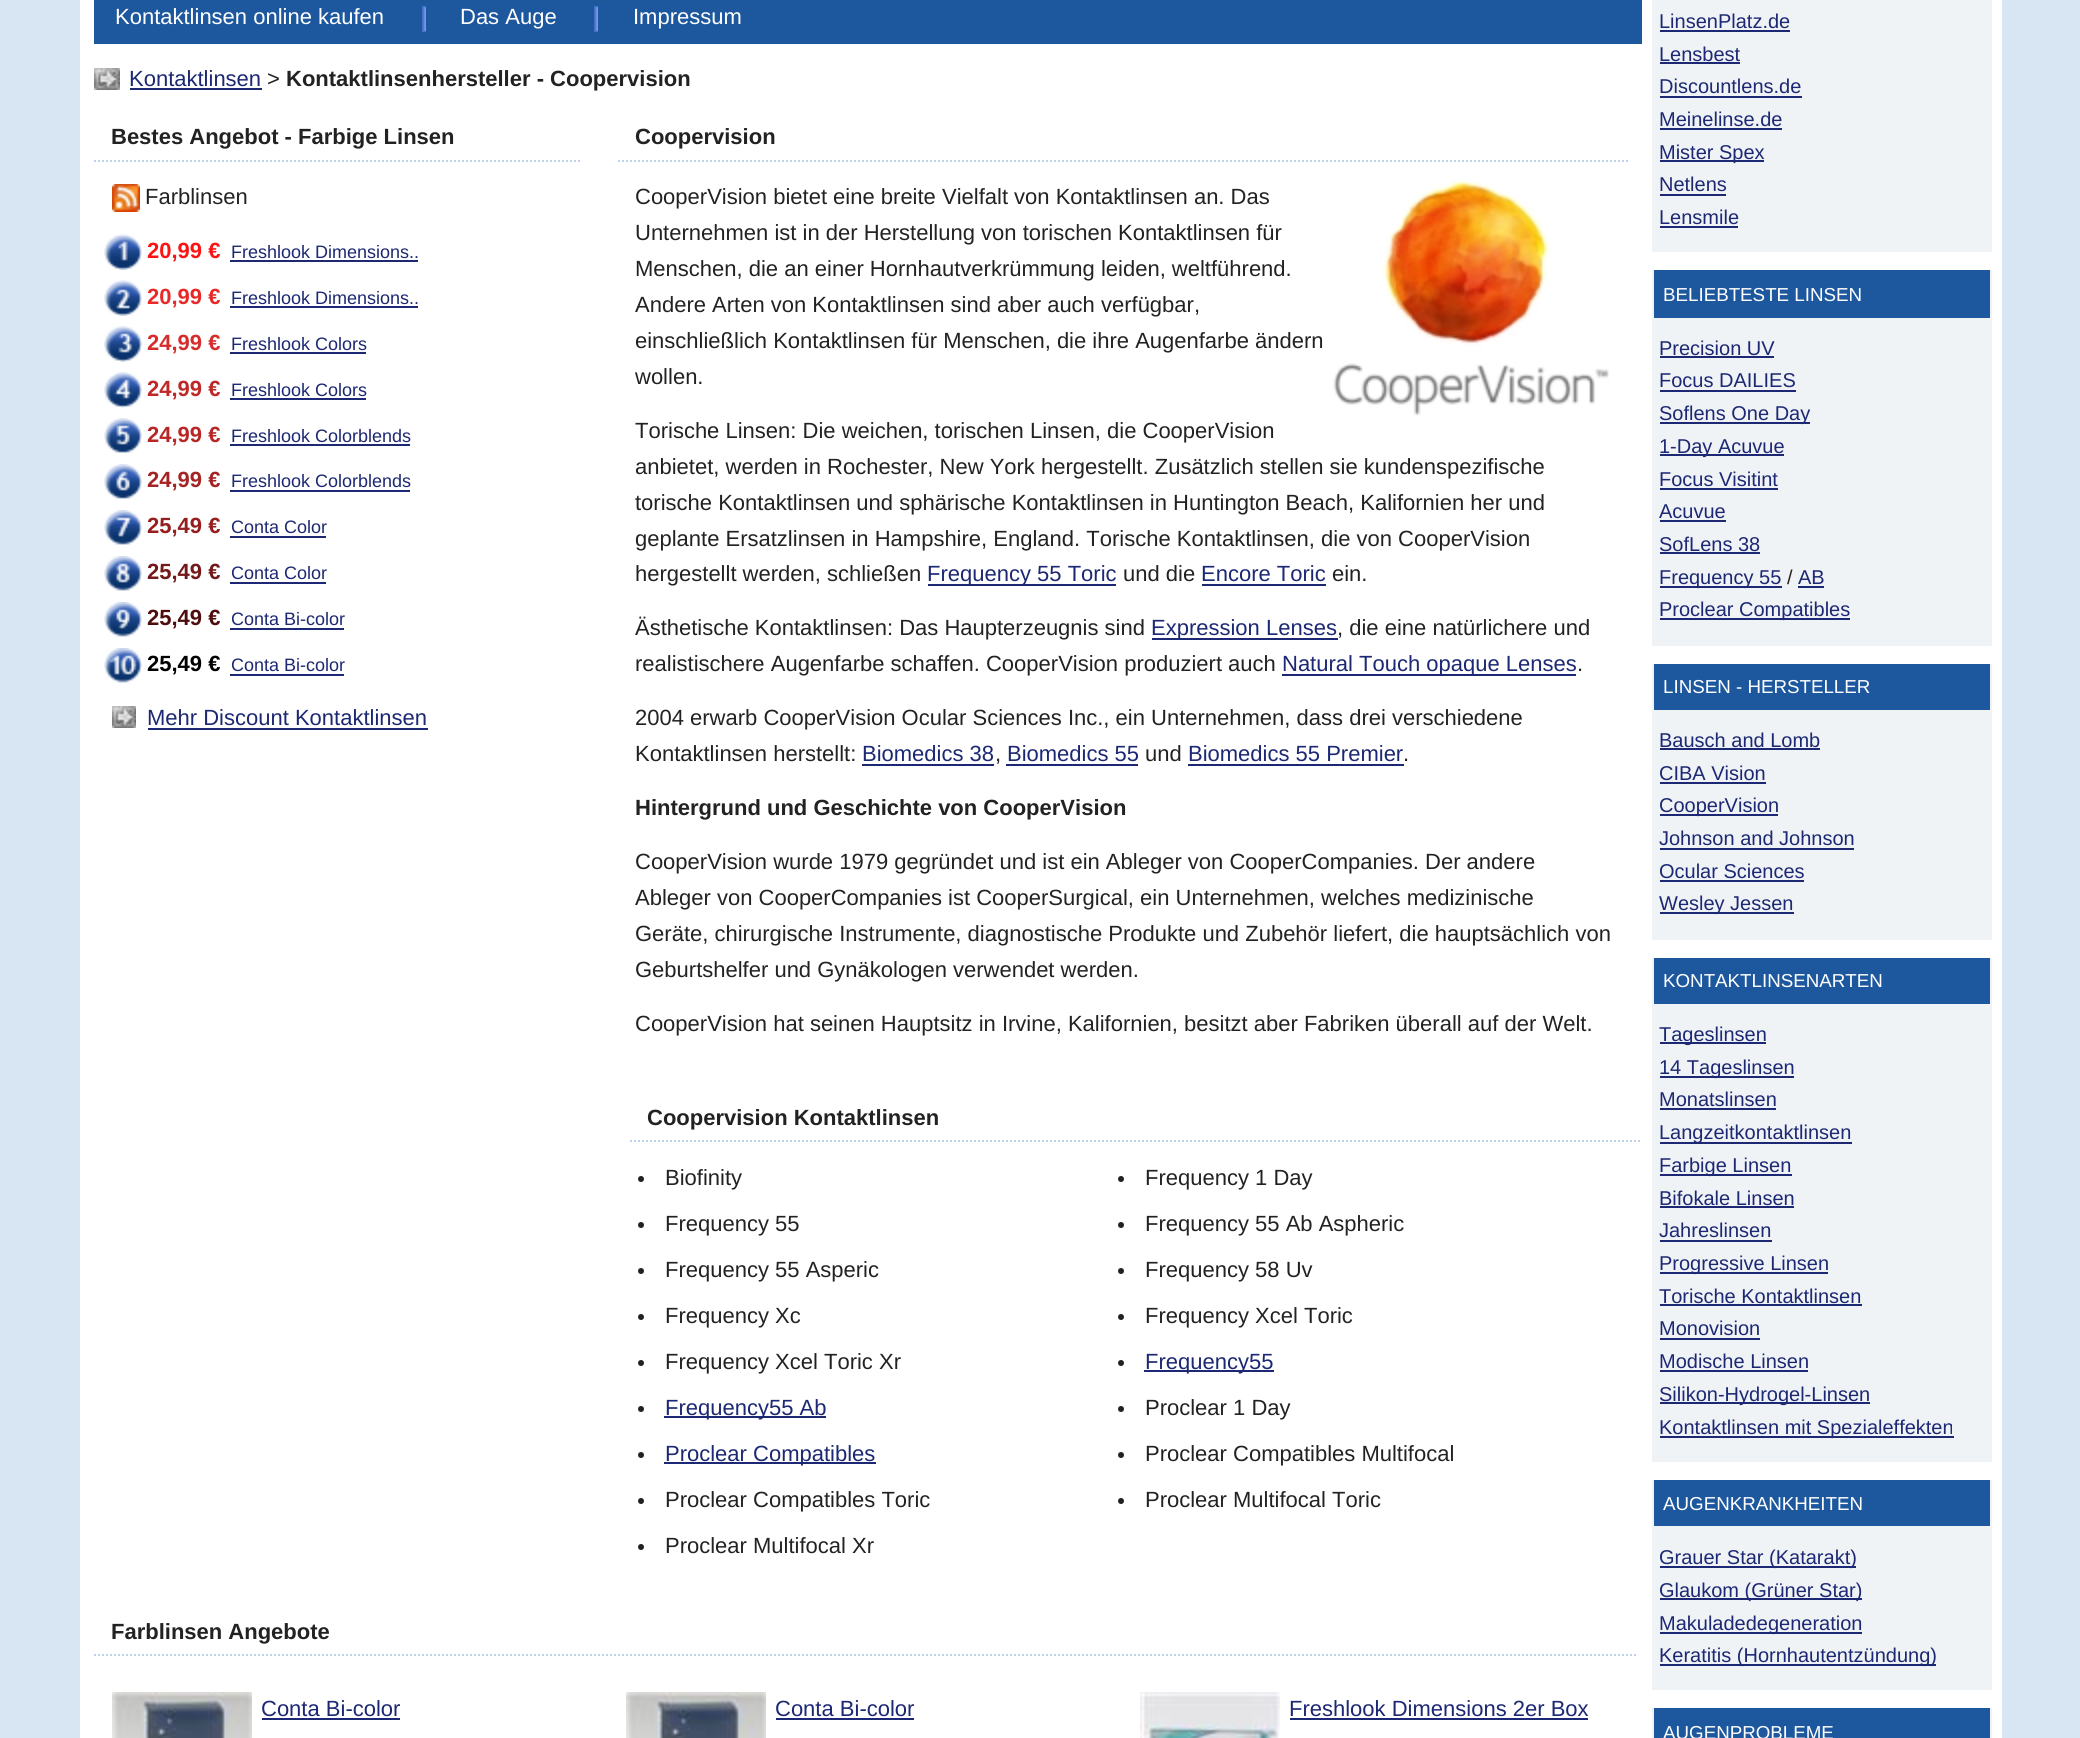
import math
import cairo

surface = cairo.ImageSurface(cairo.FORMAT_RGB24, 2080, 1738)
ctx = cairo.Context(surface)
options = cairo.FontOptions()
options.set_hint_metrics(cairo.HINT_METRICS_OFF)
options.set_hint_style(cairo.HINT_STYLE_NONE)
ctx.set_font_options(options)
ctx.set_miter_limit(4)


def picture(path, x, y, w, h):
    ctx.save()
    ctx.set_source_surface(cairo.ImageSurface.create_from_png(path), x, y)
    ctx.rectangle(x, y, w, h)
    ctx.fill()
    ctx.restore()


ctx.set_source_rgb(0.847, 0.898, 0.949)
ctx.paint()
ctx.set_source_rgb(1, 1, 1)
ctx.rectangle(80, 0, 1922, 1738)
ctx.fill()
ctx.set_source_rgb(0.114, 0.345, 0.624)
ctx.rectangle(94, 0, 1548, 44)
ctx.fill()
ctx.select_font_face("Liberation Sans")
ctx.set_font_size(22)
ctx.set_source_rgb(1, 1, 1)
ctx.move_to(115, 24)
ctx.show_text("Kontaktlinsen online kaufen")
picture("img1.png", 422, 6, 4, 26)
ctx.move_to(460, 24)
ctx.show_text("Das Auge")
picture("img1.png", 594, 6, 4, 26)
ctx.move_to(633, 24)
ctx.show_text("Impressum")
ctx.set_source_rgb(0.941, 0.953, 0.961)
ctx.rectangle(1652, 0, 340, 252)
ctx.fill()
ctx.set_font_size(20)
ctx.set_source_rgb(0.11, 0.157, 0.451)
ctx.move_to(1659, 28)
ctx.show_text("LinsenPlatz.de")
ctx.rectangle(1660, 30, 130, 2)
ctx.fill()
ctx.move_to(1659, 61)
ctx.show_text("Lensbest")
ctx.rectangle(1660, 62, 80, 2)
ctx.fill()
ctx.move_to(1659, 93)
ctx.show_text("Discountlens.de")
ctx.rectangle(1660, 96, 142, 2)
ctx.fill()
ctx.move_to(1659, 126)
ctx.show_text("Meinelinse.de")
ctx.rectangle(1660, 128, 122, 2)
ctx.fill()
ctx.rectangle(1660, 160, 104, 2)
ctx.fill()
ctx.move_to(1659, 159)
ctx.show_text("Mister Spex")
ctx.move_to(1659, 191)
ctx.show_text("Netlens")
ctx.rectangle(1660, 194, 66, 2)
ctx.fill()
ctx.move_to(1659, 224)
ctx.show_text("Lensmile")
ctx.rectangle(1660, 226, 78, 2)
ctx.fill()
ctx.set_source_rgb(0.941, 0.953, 0.961)
ctx.rectangle(1652, 270, 340, 376)
ctx.fill()
ctx.set_source_rgb(0.114, 0.345, 0.624)
ctx.rectangle(1654, 270, 336, 48)
ctx.fill()
ctx.set_font_size(18.75)
ctx.set_source_rgb(1, 1, 1)
ctx.move_to(1663, 301)
ctx.show_text("BELIEBTESTE LINSEN")
ctx.set_font_size(20)
ctx.set_source_rgb(0.11, 0.157, 0.451)
ctx.move_to(1659, 355)
ctx.show_text("Precision UV")
ctx.rectangle(1660, 356, 114, 2)
ctx.fill()
ctx.move_to(1659, 387)
ctx.show_text("Focus DAILIES")
ctx.rectangle(1660, 390, 136, 2)
ctx.fill()
ctx.rectangle(1660, 422, 150, 2)
ctx.fill()
ctx.move_to(1659, 420)
ctx.show_text("Soflens One Day")
ctx.rectangle(1660, 454, 124, 2)
ctx.fill()
ctx.move_to(1659, 453)
ctx.show_text("1-Day Acuvue")
ctx.move_to(1659, 486)
ctx.show_text("Focus Visitint")
ctx.rectangle(1660, 488, 118, 2)
ctx.fill()
ctx.move_to(1659, 518)
ctx.show_text("Acuvue")
ctx.rectangle(1660, 520, 66, 2)
ctx.fill()
ctx.move_to(1659, 551)
ctx.show_text("SofLens 38")
ctx.rectangle(1660, 552, 100, 2)
ctx.fill()
ctx.rectangle(1660, 586, 122, 2)
ctx.fill()
ctx.move_to(1659, 584)
ctx.show_text("Frequency 55")
ctx.set_source_rgb(0.133, 0.133, 0.133)
ctx.move_to(1787, 584)
ctx.show_text("/")
ctx.set_source_rgb(0.11, 0.157, 0.451)
ctx.move_to(1798, 584)
ctx.show_text("AB")
ctx.rectangle(1798, 586, 26, 2)
ctx.fill()
ctx.rectangle(1660, 618, 190, 2)
ctx.fill()
ctx.move_to(1659, 616)
ctx.show_text("Proclear Compatibles")
ctx.set_source_rgb(0.941, 0.953, 0.961)
ctx.rectangle(1652, 664, 340, 276)
ctx.fill()
ctx.set_source_rgb(0.114, 0.345, 0.624)
ctx.rectangle(1654, 664, 336, 46)
ctx.fill()
ctx.set_font_size(18.75)
ctx.set_source_rgb(1, 1, 1)
ctx.move_to(1663, 693)
ctx.show_text("LINSEN - HERSTELLER")
ctx.set_font_size(20)
ctx.set_source_rgb(0.11, 0.157, 0.451)
ctx.move_to(1659, 747)
ctx.show_text("Bausch and Lomb")
ctx.rectangle(1660, 748, 160, 2)
ctx.fill()
ctx.move_to(1659, 780)
ctx.show_text("CIBA Vision")
ctx.rectangle(1660, 782, 106, 2)
ctx.fill()
ctx.rectangle(1660, 814, 118, 2)
ctx.fill()
ctx.move_to(1659, 812)
ctx.show_text("CooperVision")
ctx.move_to(1659, 845)
ctx.show_text("Johnson and Johnson")
ctx.rectangle(1660, 848, 194, 2)
ctx.fill()
ctx.move_to(1659, 878)
ctx.show_text("Ocular Sciences")
ctx.rectangle(1660, 880, 144, 2)
ctx.fill()
ctx.rectangle(1660, 912, 134, 2)
ctx.fill()
ctx.move_to(1659, 910)
ctx.show_text("Wesley Jessen")
ctx.set_source_rgb(0.941, 0.953, 0.961)
ctx.rectangle(1652, 958, 340, 504)
ctx.fill()
ctx.set_source_rgb(0.114, 0.345, 0.624)
ctx.rectangle(1654, 958, 336, 46)
ctx.fill()
ctx.set_font_size(18.75)
ctx.set_source_rgb(1, 1, 1)
ctx.move_to(1663, 987)
ctx.show_text("KONTAKTLINSENARTEN")
ctx.set_source_rgb(0.11, 0.157, 0.451)
ctx.rectangle(1660, 1042, 106, 2)
ctx.fill()
ctx.set_font_size(20)
ctx.move_to(1659, 1041)
ctx.show_text("Tageslinsen")
ctx.rectangle(1660, 1076, 134, 2)
ctx.fill()
ctx.move_to(1659, 1074)
ctx.show_text("14 Tageslinsen")
ctx.move_to(1659, 1106)
ctx.show_text("Monatslinsen")
ctx.rectangle(1660, 1108, 116, 2)
ctx.fill()
ctx.rectangle(1660, 1142, 192, 2)
ctx.fill()
ctx.move_to(1659, 1139)
ctx.show_text("Langzeitkontaktlinsen")
ctx.rectangle(1660, 1174, 132, 2)
ctx.fill()
ctx.move_to(1659, 1172)
ctx.show_text("Farbige Linsen")
ctx.move_to(1659, 1205)
ctx.show_text("Bifokale Linsen")
ctx.rectangle(1660, 1206, 134, 2)
ctx.fill()
ctx.move_to(1659, 1237)
ctx.show_text("Jahreslinsen")
ctx.rectangle(1660, 1240, 112, 2)
ctx.fill()
ctx.rectangle(1660, 1272, 168, 2)
ctx.fill()
ctx.move_to(1659, 1270)
ctx.show_text("Progressive Linsen")
ctx.move_to(1659, 1303)
ctx.show_text("Torische Kontaktlinsen")
ctx.rectangle(1660, 1304, 202, 2)
ctx.fill()
ctx.move_to(1659, 1335)
ctx.show_text("Monovision")
ctx.rectangle(1660, 1338, 100, 2)
ctx.fill()
ctx.move_to(1659, 1368)
ctx.show_text("Modische Linsen")
ctx.rectangle(1660, 1370, 148, 2)
ctx.fill()
ctx.rectangle(1660, 1402, 210, 2)
ctx.fill()
ctx.move_to(1659, 1401)
ctx.show_text("Silikon-Hydrogel-Linsen")
ctx.rectangle(1660, 1436, 294, 2)
ctx.fill()
ctx.move_to(1659, 1434)
ctx.show_text("Kontaktlinsen mit Spezialeffekten")
ctx.set_source_rgb(0.941, 0.953, 0.961)
ctx.rectangle(1652, 1480, 340, 210)
ctx.fill()
ctx.set_source_rgb(0.114, 0.345, 0.624)
ctx.rectangle(1654, 1480, 336, 46)
ctx.fill()
ctx.set_font_size(18.75)
ctx.set_source_rgb(1, 1, 1)
ctx.move_to(1663, 1510)
ctx.show_text("AUGENKRANKHEITEN")
ctx.set_source_rgb(0.11, 0.157, 0.451)
ctx.rectangle(1660, 1566, 196, 2)
ctx.fill()
ctx.set_font_size(20)
ctx.move_to(1659, 1564)
ctx.show_text("Grauer Star (Katarakt)")
ctx.rectangle(1660, 1598, 202, 2)
ctx.fill()
ctx.move_to(1659, 1597)
ctx.show_text("Glaukom (Grüner Star)")
ctx.rectangle(1660, 1632, 202, 2)
ctx.fill()
ctx.move_to(1659, 1630)
ctx.show_text("Makuladedegeneration")
ctx.rectangle(1660, 1664, 276, 2)
ctx.fill()
ctx.move_to(1659, 1662)
ctx.show_text("Keratitis (Hornhautentzündung)")
ctx.set_source_rgb(0.941, 0.953, 0.961)
ctx.rectangle(1652, 1708, 340, 30)
ctx.fill()
ctx.set_source_rgb(0.114, 0.345, 0.624)
ctx.rectangle(1654, 1708, 336, 30)
ctx.fill()
ctx.set_font_size(18.75)
ctx.set_source_rgb(1, 1, 1)
ctx.move_to(1663, 1739)
ctx.show_text("AUGENPROBLEME")
picture("img2.png", 94, 68, 26, 22)
ctx.set_font_size(22)
ctx.set_source_rgb(0.11, 0.157, 0.451)
ctx.move_to(129, 86)
ctx.show_text("Kontaktlinsen")
ctx.rectangle(130, 88, 132, 2)
ctx.fill()
ctx.set_source_rgb(0.133, 0.133, 0.133)
ctx.move_to(267, 86)
ctx.show_text(">")
ctx.select_font_face("Liberation Sans", cairo.FONT_SLANT_NORMAL, cairo.FONT_WEIGHT_BOLD)
ctx.move_to(286, 86)
ctx.show_text("Kontaktlinsenhersteller - Coopervision")
ctx.new_path()
ctx.move_to(94, 161)
ctx.line_to(582, 161)
ctx.set_source_rgb(0.741, 0.82, 0.918)
ctx.set_dash([2, 2])
ctx.stroke()
ctx.set_source_rgb(0.133, 0.133, 0.133)
ctx.move_to(111, 144)
ctx.show_text("Bestes Angebot - Farbige Linsen")
picture("img3.png", 112, 184, 28, 28)
ctx.select_font_face("Liberation Sans")
ctx.move_to(145, 204)
ctx.show_text("Farblinsen")
picture("img4.png", 104, 234, 38, 36)
ctx.select_font_face("Liberation Sans", cairo.FONT_SLANT_NORMAL, cairo.FONT_WEIGHT_BOLD)
ctx.set_source_rgb(0.992, 0.078, 0.078)
ctx.move_to(147, 258)
ctx.show_text("20,99 €")
ctx.select_font_face("Liberation Sans")
ctx.set_font_size(18)
ctx.set_source_rgb(0.11, 0.157, 0.451)
ctx.move_to(231, 258)
ctx.show_text("Freshlook Dimensions..")
ctx.rectangle(230, 260, 188, 2)
ctx.fill()
picture("img5.png", 104, 280, 38, 36)
ctx.select_font_face("Liberation Sans", cairo.FONT_SLANT_NORMAL, cairo.FONT_WEIGHT_BOLD)
ctx.set_font_size(22)
ctx.set_source_rgb(0.914, 0.157, 0.157)
ctx.move_to(147, 304)
ctx.show_text("20,99 €")
ctx.select_font_face("Liberation Sans")
ctx.set_font_size(18)
ctx.set_source_rgb(0.11, 0.157, 0.451)
ctx.move_to(231, 304)
ctx.show_text("Freshlook Dimensions..")
ctx.rectangle(230, 306, 188, 2)
ctx.fill()
picture("img6.png", 104, 326, 38, 36)
ctx.select_font_face("Liberation Sans", cairo.FONT_SLANT_NORMAL, cairo.FONT_WEIGHT_BOLD)
ctx.set_font_size(22)
ctx.set_source_rgb(0.839, 0.173, 0.173)
ctx.move_to(147, 350)
ctx.show_text("24,99 €")
ctx.select_font_face("Liberation Sans")
ctx.set_font_size(18)
ctx.set_source_rgb(0.11, 0.157, 0.451)
ctx.move_to(231, 350)
ctx.show_text("Freshlook Colors")
ctx.rectangle(230, 352, 136, 2)
ctx.fill()
picture("img7.png", 104, 372, 38, 36)
ctx.select_font_face("Liberation Sans", cairo.FONT_SLANT_NORMAL, cairo.FONT_WEIGHT_BOLD)
ctx.set_font_size(22)
ctx.set_source_rgb(0.753, 0.153, 0.153)
ctx.move_to(147, 396)
ctx.show_text("24,99 €")
ctx.select_font_face("Liberation Sans")
ctx.set_font_size(18)
ctx.set_source_rgb(0.11, 0.157, 0.451)
ctx.move_to(231, 396)
ctx.show_text("Freshlook Colors")
ctx.rectangle(230, 398, 136, 2)
ctx.fill()
picture("img8.png", 104, 418, 38, 35)
ctx.select_font_face("Liberation Sans", cairo.FONT_SLANT_NORMAL, cairo.FONT_WEIGHT_BOLD)
ctx.set_font_size(22)
ctx.set_source_rgb(0.722, 0.149, 0.149)
ctx.move_to(147, 442)
ctx.show_text("24,99 €")
ctx.select_font_face("Liberation Sans")
ctx.set_font_size(18)
ctx.set_source_rgb(0.11, 0.157, 0.451)
ctx.move_to(231, 442)
ctx.show_text("Freshlook Colorblends")
ctx.rectangle(230, 444, 180, 2)
ctx.fill()
picture("img9.png", 104, 464, 38, 35)
ctx.select_font_face("Liberation Sans", cairo.FONT_SLANT_NORMAL, cairo.FONT_WEIGHT_BOLD)
ctx.set_font_size(22)
ctx.set_source_rgb(0.651, 0.137, 0.137)
ctx.move_to(147, 487)
ctx.show_text("24,99 €")
ctx.select_font_face("Liberation Sans")
ctx.set_font_size(18)
ctx.set_source_rgb(0.11, 0.157, 0.451)
ctx.move_to(231, 487)
ctx.show_text("Freshlook Colorblends")
ctx.rectangle(230, 490, 180, 2)
ctx.fill()
picture("img10.png", 104, 510, 38, 35)
ctx.select_font_face("Liberation Sans", cairo.FONT_SLANT_NORMAL, cairo.FONT_WEIGHT_BOLD)
ctx.set_font_size(22)
ctx.set_source_rgb(0.588, 0.118, 0.118)
ctx.move_to(147, 533)
ctx.show_text("25,49 €")
ctx.select_font_face("Liberation Sans")
ctx.set_font_size(18)
ctx.set_source_rgb(0.11, 0.157, 0.451)
ctx.move_to(231, 533)
ctx.show_text("Conta Color")
ctx.rectangle(230, 536, 96, 2)
ctx.fill()
picture("img11.png", 104, 556, 38, 35)
ctx.select_font_face("Liberation Sans", cairo.FONT_SLANT_NORMAL, cairo.FONT_WEIGHT_BOLD)
ctx.set_font_size(22)
ctx.set_source_rgb(0.455, 0.098, 0.098)
ctx.move_to(147, 579)
ctx.show_text("25,49 €")
ctx.select_font_face("Liberation Sans")
ctx.set_font_size(18)
ctx.set_source_rgb(0.11, 0.157, 0.451)
ctx.move_to(231, 579)
ctx.show_text("Conta Color")
ctx.rectangle(230, 582, 96, 2)
ctx.fill()
picture("img12.png", 104, 602, 38, 35)
ctx.select_font_face("Liberation Sans", cairo.FONT_SLANT_NORMAL, cairo.FONT_WEIGHT_BOLD)
ctx.set_font_size(22)
ctx.set_source_rgb(0.31, 0.051, 0.051)
ctx.move_to(147, 625)
ctx.show_text("25,49 €")
ctx.select_font_face("Liberation Sans")
ctx.set_font_size(18)
ctx.set_source_rgb(0.11, 0.157, 0.451)
ctx.move_to(231, 625)
ctx.show_text("Conta Bi-color")
ctx.rectangle(230, 628, 114, 2)
ctx.fill()
picture("img13.png", 104, 648, 38, 35)
ctx.select_font_face("Liberation Sans", cairo.FONT_SLANT_NORMAL, cairo.FONT_WEIGHT_BOLD)
ctx.set_font_size(22)
ctx.set_source_rgb(0, 0, 0)
ctx.move_to(147, 671)
ctx.show_text("25,49 €")
ctx.select_font_face("Liberation Sans")
ctx.set_font_size(18)
ctx.set_source_rgb(0.11, 0.157, 0.451)
ctx.move_to(231, 671)
ctx.show_text("Conta Bi-color")
ctx.rectangle(230, 674, 114, 2)
ctx.fill()
picture("img14.png", 112, 706, 24, 22)
ctx.set_font_size(22)
ctx.move_to(147, 725)
ctx.show_text("Mehr Discount Kontaktlinsen")
ctx.rectangle(148, 728, 280, 2)
ctx.fill()
ctx.new_path()
ctx.move_to(618, 161)
ctx.line_to(1630, 161)
ctx.set_source_rgb(0.741, 0.82, 0.918)
ctx.stroke()
ctx.select_font_face("Liberation Sans", cairo.FONT_SLANT_NORMAL, cairo.FONT_WEIGHT_BOLD)
ctx.set_source_rgb(0.133, 0.133, 0.133)
ctx.move_to(635, 144)
ctx.show_text("Coopervision")
ctx.select_font_face("Liberation Sans")
ctx.move_to(635, 204)
ctx.show_text("CooperVision bietet eine breite Vielfalt von Kontaktlinsen an. Das")
ctx.move_to(635, 240)
ctx.show_text("Unternehmen ist in der Herstellung von torischen Kontaktlinsen für")
ctx.move_to(635, 276)
ctx.show_text("Menschen, die an einer Hornhautverkrümmung leiden, weltführend.")
ctx.move_to(635, 312)
ctx.show_text("Andere Arten von Kontaktlinsen sind aber auch verfügbar,")
ctx.move_to(635, 348)
ctx.show_text("einschließlich Kontaktlinsen für Menschen, die ihre Augenfarbe ändern")
ctx.move_to(635, 384)
ctx.show_text("wollen.")
picture("img15.png", 1333, 180, 276, 236)
ctx.move_to(635, 438)
ctx.show_text("Torische Linsen: Die weichen, torischen Linsen, die CooperVision")
ctx.move_to(635, 474)
ctx.show_text("anbietet, werden in Rochester, New York hergestellt. Zusätzlich stellen sie kundenspezifische")
ctx.move_to(635, 510)
ctx.show_text("torische Kontaktlinsen und sphärische Kontaktlinsen in Huntington Beach, Kalifornien her und")
ctx.move_to(635, 546)
ctx.show_text("geplante Ersatzlinsen in Hampshire, England. Torische Kontaktlinsen, die von CooperVision")
ctx.move_to(635, 581)
ctx.show_text("hergestellt werden, schließen")
ctx.set_source_rgb(0.11, 0.157, 0.451)
ctx.rectangle(928, 584, 188, 2)
ctx.fill()
ctx.move_to(927, 581)
ctx.show_text("Frequency 55 Toric")
ctx.set_source_rgb(0.133, 0.133, 0.133)
ctx.move_to(1123, 581)
ctx.show_text("und die")
ctx.set_source_rgb(0.11, 0.157, 0.451)
ctx.move_to(1201, 581)
ctx.show_text("Encore Toric")
ctx.rectangle(1202, 584, 124, 2)
ctx.fill()
ctx.set_source_rgb(0.133, 0.133, 0.133)
ctx.move_to(1332, 581)
ctx.show_text("ein.")
ctx.move_to(635, 635)
ctx.show_text("Ästhetische Kontaktlinsen: Das Haupterzeugnis sind")
ctx.set_source_rgb(0.11, 0.157, 0.451)
ctx.rectangle(1152, 638, 186, 2)
ctx.fill()
ctx.move_to(1151, 635)
ctx.show_text("Expression Lenses")
ctx.set_source_rgb(0.133, 0.133, 0.133)
ctx.move_to(1337, 635)
ctx.show_text(", die eine natürlichere und")
ctx.move_to(635, 671)
ctx.show_text("realistischere Augenfarbe schaffen. CooperVision produziert auch")
ctx.set_source_rgb(0.11, 0.157, 0.451)
ctx.rectangle(1282, 674, 294, 2)
ctx.fill()
ctx.move_to(1282, 671)
ctx.show_text("Natural Touch opaque Lenses")
ctx.set_source_rgb(0.133, 0.133, 0.133)
ctx.move_to(1577, 671)
ctx.show_text(".")
ctx.move_to(635, 725)
ctx.show_text("2004 erwarb CooperVision Ocular Sciences Inc., ein Unternehmen, dass drei verschiedene")
ctx.move_to(635, 761)
ctx.show_text("Kontaktlinsen herstellt:")
ctx.set_source_rgb(0.11, 0.157, 0.451)
ctx.move_to(862, 761)
ctx.show_text("Biomedics 38")
ctx.rectangle(862, 764, 132, 2)
ctx.fill()
ctx.set_source_rgb(0.133, 0.133, 0.133)
ctx.move_to(995, 761)
ctx.show_text(",")
ctx.set_source_rgb(0.11, 0.157, 0.451)
ctx.move_to(1007, 761)
ctx.show_text("Biomedics 55")
ctx.rectangle(1006, 764, 132, 2)
ctx.fill()
ctx.set_source_rgb(0.133, 0.133, 0.133)
ctx.move_to(1145, 761)
ctx.show_text("und")
ctx.set_source_rgb(0.11, 0.157, 0.451)
ctx.move_to(1188, 761)
ctx.show_text("Biomedics 55 Premier")
ctx.rectangle(1188, 764, 216, 2)
ctx.fill()
ctx.set_source_rgb(0.133, 0.133, 0.133)
ctx.move_to(1403, 761)
ctx.show_text(".")
ctx.select_font_face("Liberation Sans", cairo.FONT_SLANT_NORMAL, cairo.FONT_WEIGHT_BOLD)
ctx.move_to(635, 815)
ctx.show_text("Hintergrund und Geschichte von CooperVision")
ctx.select_font_face("Liberation Sans")
ctx.move_to(635, 869)
ctx.show_text("CooperVision wurde 1979 gegründet und ist ein Ableger von CooperCompanies. Der andere")
ctx.move_to(635, 905)
ctx.show_text("Ableger von CooperCompanies ist CooperSurgical, ein Unternehmen, welches medizinische")
ctx.move_to(635, 941)
ctx.show_text("Geräte, chirurgische Instrumente, diagnostische Produkte und Zubehör liefert, die hauptsächlich von")
ctx.move_to(635, 977)
ctx.show_text("Geburtshelfer und Gynäkologen verwendet werden.")
ctx.move_to(635, 1031)
ctx.show_text("CooperVision hat seinen Hauptsitz in Irvine, Kalifornien, besitzt aber Fabriken überall auf der Welt.")
ctx.new_path()
ctx.move_to(630, 1141)
ctx.line_to(1642, 1141)
ctx.set_source_rgb(0.741, 0.82, 0.918)
ctx.stroke()
ctx.select_font_face("Liberation Sans", cairo.FONT_SLANT_NORMAL, cairo.FONT_WEIGHT_BOLD)
ctx.set_source_rgb(0.133, 0.133, 0.133)
ctx.move_to(647, 1125)
ctx.show_text("Coopervision Kontaktlinsen")
ctx.new_path()
ctx.arc(641, 1179, 3, 0, 2 * math.pi)
ctx.fill()
ctx.select_font_face("Liberation Sans")
ctx.move_to(665, 1185)
ctx.show_text("Biofinity")
ctx.new_path()
ctx.arc(1121, 1179, 3, 0, 2 * math.pi)
ctx.fill()
ctx.move_to(1145, 1185)
ctx.show_text("Frequency 1 Day")
ctx.new_path()
ctx.arc(641, 1225, 3, 0, 2 * math.pi)
ctx.fill()
ctx.move_to(665, 1231)
ctx.show_text("Frequency 55")
ctx.new_path()
ctx.arc(1121, 1225, 3, 0, 2 * math.pi)
ctx.fill()
ctx.move_to(1145, 1231)
ctx.show_text("Frequency 55 Ab Aspheric")
ctx.new_path()
ctx.arc(641, 1271, 3, 0, 2 * math.pi)
ctx.fill()
ctx.move_to(665, 1277)
ctx.show_text("Frequency 55 Asperic")
ctx.new_path()
ctx.arc(1121, 1271, 3, 0, 2 * math.pi)
ctx.fill()
ctx.move_to(1145, 1277)
ctx.show_text("Frequency 58 Uv")
ctx.new_path()
ctx.arc(641, 1317, 3, 0, 2 * math.pi)
ctx.fill()
ctx.move_to(665, 1323)
ctx.show_text("Frequency Xc")
ctx.new_path()
ctx.arc(1121, 1317, 3, 0, 2 * math.pi)
ctx.fill()
ctx.move_to(1145, 1323)
ctx.show_text("Frequency Xcel Toric")
ctx.new_path()
ctx.arc(641, 1363, 3, 0, 2 * math.pi)
ctx.fill()
ctx.move_to(665, 1369)
ctx.show_text("Frequency Xcel Toric Xr")
ctx.new_path()
ctx.arc(1121, 1363, 3, 0, 2 * math.pi)
ctx.fill()
ctx.set_source_rgb(0.11, 0.157, 0.451)
ctx.rectangle(1144, 1370, 130, 2)
ctx.fill()
ctx.move_to(1145, 1369)
ctx.show_text("Frequency55")
ctx.set_source_rgb(0.133, 0.133, 0.133)
ctx.new_path()
ctx.arc(641, 1409, 3, 0, 2 * math.pi)
ctx.fill()
ctx.set_source_rgb(0.11, 0.157, 0.451)
ctx.rectangle(664, 1416, 162, 2)
ctx.fill()
ctx.move_to(665, 1415)
ctx.show_text("Frequency55 Ab")
ctx.set_source_rgb(0.133, 0.133, 0.133)
ctx.new_path()
ctx.arc(1121, 1409, 3, 0, 2 * math.pi)
ctx.fill()
ctx.move_to(1145, 1415)
ctx.show_text("Proclear 1 Day")
ctx.new_path()
ctx.arc(641, 1455, 3, 0, 2 * math.pi)
ctx.fill()
ctx.set_source_rgb(0.11, 0.157, 0.451)
ctx.rectangle(664, 1462, 212, 2)
ctx.fill()
ctx.move_to(665, 1461)
ctx.show_text("Proclear Compatibles")
ctx.set_source_rgb(0.133, 0.133, 0.133)
ctx.new_path()
ctx.arc(1121, 1455, 3, 0, 2 * math.pi)
ctx.fill()
ctx.move_to(1145, 1461)
ctx.show_text("Proclear Compatibles Multifocal")
ctx.new_path()
ctx.arc(641, 1501, 3, 0, 2 * math.pi)
ctx.fill()
ctx.move_to(665, 1507)
ctx.show_text("Proclear Compatibles Toric")
ctx.new_path()
ctx.arc(1121, 1501, 3, 0, 2 * math.pi)
ctx.fill()
ctx.move_to(1145, 1507)
ctx.show_text("Proclear Multifocal Toric")
ctx.new_path()
ctx.arc(641, 1547, 3, 0, 2 * math.pi)
ctx.fill()
ctx.move_to(665, 1553)
ctx.show_text("Proclear Multifocal Xr")
ctx.new_path()
ctx.move_to(94, 1655)
ctx.line_to(1638, 1655)
ctx.set_source_rgb(0.741, 0.82, 0.918)
ctx.stroke()
ctx.select_font_face("Liberation Sans", cairo.FONT_SLANT_NORMAL, cairo.FONT_WEIGHT_BOLD)
ctx.set_source_rgb(0.133, 0.133, 0.133)
ctx.move_to(111, 1639)
ctx.show_text("Farblinsen Angebote")
picture("img16.png", 112, 1692, 140, 46)
ctx.select_font_face("Liberation Sans")
ctx.set_source_rgb(0.11, 0.157, 0.451)
ctx.move_to(261, 1716)
ctx.show_text("Conta Bi-color")
ctx.rectangle(262, 1718, 138, 2)
ctx.fill()
picture("img16.png", 626, 1692, 140, 46)
ctx.move_to(775, 1716)
ctx.show_text("Conta Bi-color")
ctx.rectangle(776, 1718, 138, 2)
ctx.fill()
picture("img17.png", 1140, 1692, 140, 46)
ctx.move_to(1289, 1716)
ctx.show_text("Freshlook Dimensions 2er Box")
ctx.rectangle(1290, 1718, 298, 2)
ctx.fill()
surface.write_to_png("page.png")
